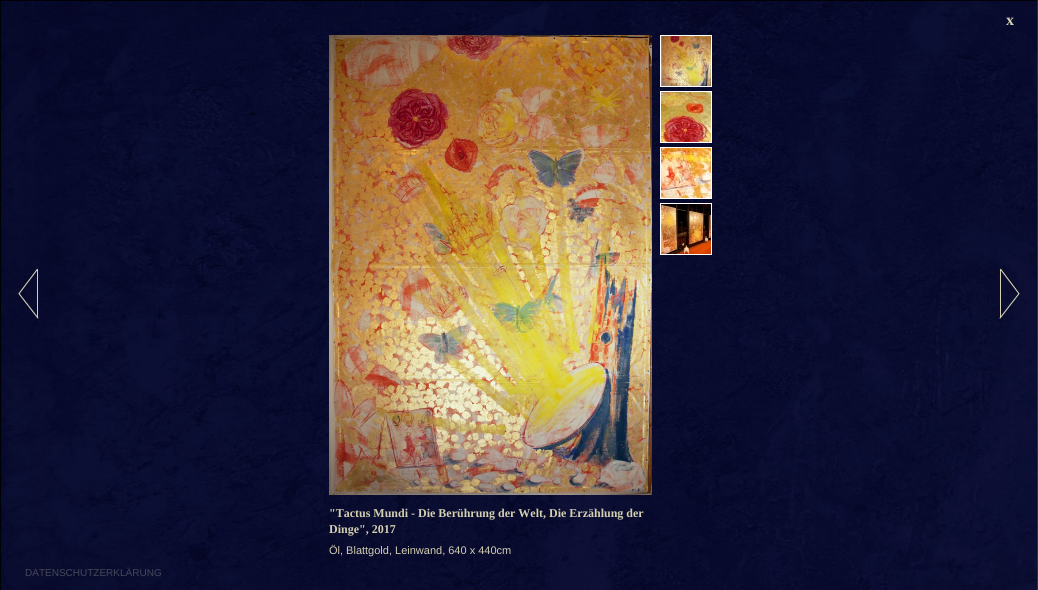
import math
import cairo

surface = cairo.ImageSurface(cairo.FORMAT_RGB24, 1038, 590)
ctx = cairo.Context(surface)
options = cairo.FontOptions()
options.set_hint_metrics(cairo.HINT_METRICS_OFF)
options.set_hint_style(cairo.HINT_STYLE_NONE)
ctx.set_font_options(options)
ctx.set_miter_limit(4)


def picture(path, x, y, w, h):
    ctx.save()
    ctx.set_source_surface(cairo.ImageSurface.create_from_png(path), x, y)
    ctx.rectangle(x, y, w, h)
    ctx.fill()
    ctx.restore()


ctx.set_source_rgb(1, 1, 1)
ctx.paint()
picture("img1.png", 0, 0, 1038, 590)
ctx.select_font_face("Liberation Serif", cairo.FONT_SLANT_NORMAL, cairo.FONT_WEIGHT_BOLD)
ctx.set_font_size(16)
ctx.set_source_rgb(0.827, 0.812, 0.694)
ctx.move_to(1006, 25)
ctx.show_text("x")
ctx.rectangle(660.5, 35.5, 51, 51)
ctx.set_source_rgb(1, 1, 1)
ctx.set_line_width(1)
ctx.stroke()
picture("img2.png", 661, 36, 50, 50)
ctx.rectangle(660.5, 91.5, 51, 51)
ctx.stroke()
picture("img3.png", 661, 92, 50, 50)
ctx.rectangle(660.5, 147.5, 51, 51)
ctx.stroke()
picture("img4.png", 661, 148, 50, 50)
ctx.rectangle(660.5, 203.5, 51, 51)
ctx.stroke()
picture("img5.png", 661, 204, 50, 50)
picture("img6.png", 18, 269, 21, 50)
picture("img7.png", 999, 269, 21, 50)
picture("img8.png", 329, 35, 323, 460)
ctx.set_font_size(12)
ctx.set_source_rgb(0.827, 0.812, 0.694)
ctx.move_to(329, 517)
ctx.show_text("\"Tactus Mundi - Die Berührung der Welt, Die Erzählung der")
ctx.move_to(329, 533)
ctx.show_text("Dinge\", 2017")
ctx.select_font_face("Liberation Sans")
ctx.set_font_size(11)
ctx.move_to(329, 554)
ctx.show_text("Öl, Blattgold, Leinwand, 640 x 440cm")
ctx.set_font_size(10)
ctx.set_source_rgb(0.275, 0.278, 0.341)
ctx.move_to(25, 576)
ctx.show_text("DATENSCHUTZERKLÄRUNG")
surface.write_to_png("page.png")
